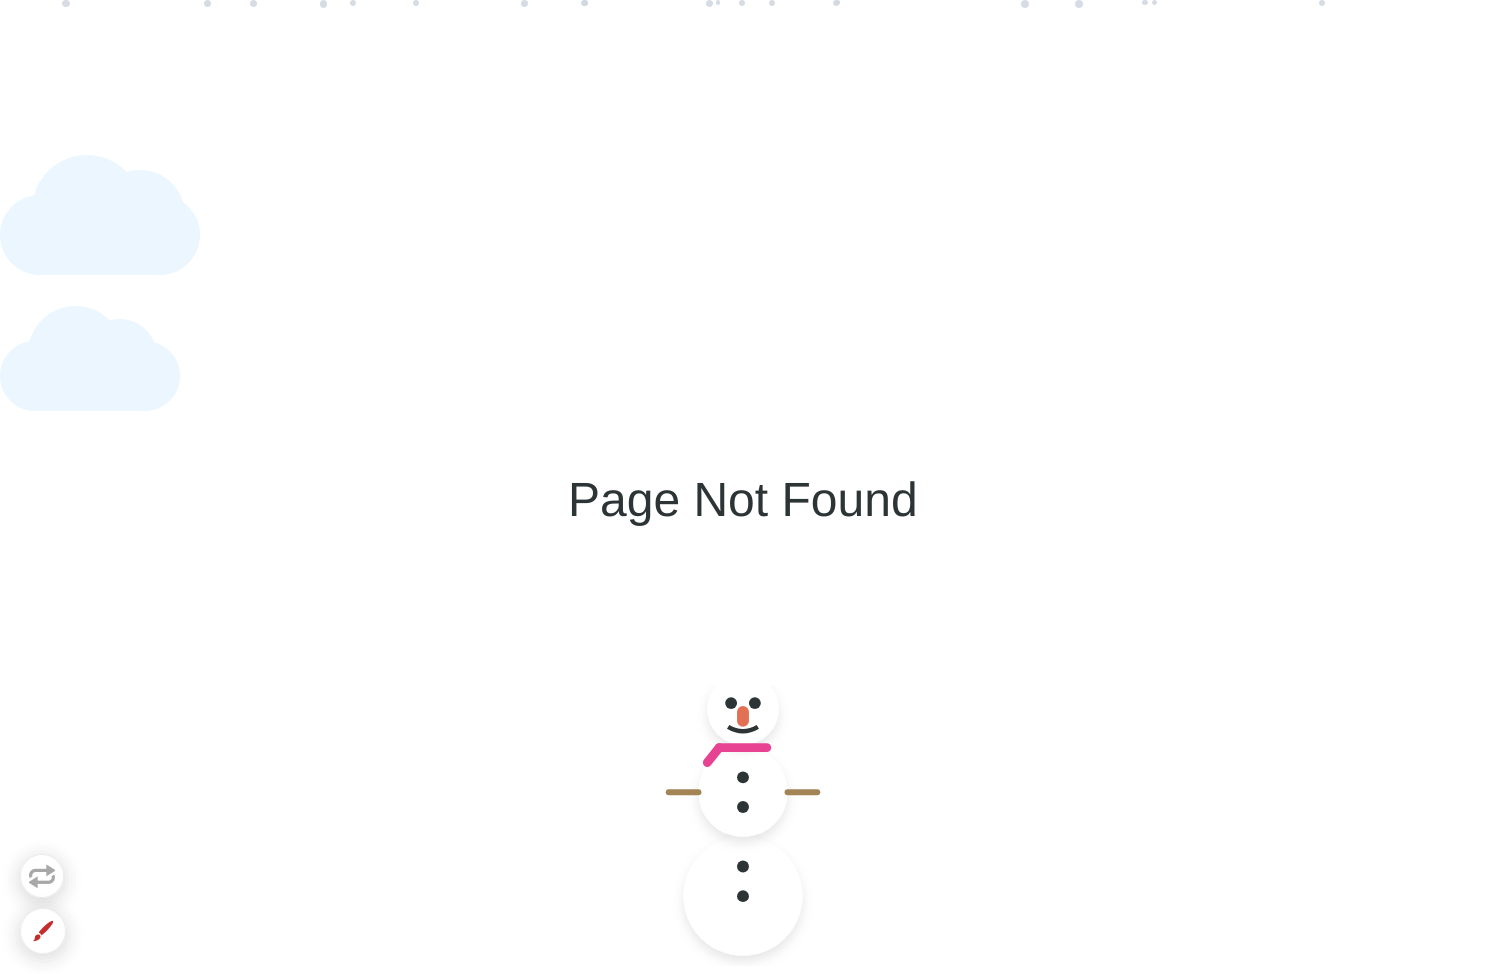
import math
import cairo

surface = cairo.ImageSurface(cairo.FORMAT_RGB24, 1485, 974)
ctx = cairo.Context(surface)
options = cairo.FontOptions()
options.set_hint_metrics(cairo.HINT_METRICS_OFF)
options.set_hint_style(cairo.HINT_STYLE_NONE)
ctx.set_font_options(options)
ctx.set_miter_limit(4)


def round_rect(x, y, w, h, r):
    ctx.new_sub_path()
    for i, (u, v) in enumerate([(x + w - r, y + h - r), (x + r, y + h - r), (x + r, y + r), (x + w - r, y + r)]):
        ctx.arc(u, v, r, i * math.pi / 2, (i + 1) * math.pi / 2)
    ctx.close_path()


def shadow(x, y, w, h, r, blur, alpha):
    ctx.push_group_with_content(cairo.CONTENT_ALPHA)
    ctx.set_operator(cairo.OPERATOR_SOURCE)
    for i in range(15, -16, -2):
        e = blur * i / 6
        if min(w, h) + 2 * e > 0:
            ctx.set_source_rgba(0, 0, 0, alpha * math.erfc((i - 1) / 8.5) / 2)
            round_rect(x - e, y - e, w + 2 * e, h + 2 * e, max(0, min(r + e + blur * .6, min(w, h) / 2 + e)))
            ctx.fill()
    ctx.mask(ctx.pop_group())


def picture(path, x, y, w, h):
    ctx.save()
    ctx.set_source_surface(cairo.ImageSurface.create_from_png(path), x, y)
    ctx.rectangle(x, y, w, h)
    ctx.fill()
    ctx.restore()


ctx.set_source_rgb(1, 1, 1)
ctx.paint()
ctx.set_source_rgb(0.839, 0.863, 0.89)
round_rect(62, 0, 8, 7, 3.5)
ctx.fill()
ctx.arc(207.5, 3.5, 3.5, 0, 2 * math.pi)
ctx.fill()
ctx.arc(253.5, 3.5, 3.5, 0, 2 * math.pi)
ctx.fill()
round_rect(320, 0, 7, 8, 3.5)
ctx.fill()
ctx.arc(353, 3, 3, 0, 2 * math.pi)
ctx.fill()
ctx.arc(416, 3, 3, 0, 2 * math.pi)
ctx.fill()
ctx.arc(524.5, 3.5, 3.5, 0, 2 * math.pi)
ctx.fill()
ctx.arc(585, 3, 3, 0, 2 * math.pi)
ctx.fill()
ctx.set_source_rgba(0.82, 0.847, 0.878, 0.9)
round_rect(581, 0, 7, 6, 3)
ctx.fill()
ctx.set_source_rgb(0.839, 0.863, 0.89)
ctx.arc(709.5, 3.5, 3.5, 0, 2 * math.pi)
ctx.fill()
round_rect(716, 0, 4, 5, 2)
ctx.fill()
ctx.arc(742, 3, 3, 0, 2 * math.pi)
ctx.fill()
ctx.arc(772, 3, 3, 0, 2 * math.pi)
ctx.fill()
ctx.arc(836, 3, 3, 0, 2 * math.pi)
ctx.fill()
ctx.set_source_rgba(0.82, 0.847, 0.878, 0.9)
round_rect(836, 0, 4, 5, 2)
ctx.fill()
ctx.set_source_rgb(0.839, 0.863, 0.89)
ctx.arc(1025, 4, 4, 0, 2 * math.pi)
ctx.fill()
ctx.arc(1079, 4, 4, 0, 2 * math.pi)
ctx.fill()
round_rect(1142, 0, 6, 5, 2.5)
ctx.fill()
ctx.arc(1154.5, 2.5, 2.5, 0, 2 * math.pi)
ctx.fill()
ctx.arc(1322, 3, 3, 0, 2 * math.pi)
ctx.fill()
ctx.set_source_rgb(0.918, 0.961, 1)
round_rect(0, 195, 200, 80, 40)
ctx.fill()
ctx.arc(87, 210, 55, 0, 2 * math.pi)
ctx.fill()
ctx.arc(140, 215, 45, 0, 2 * math.pi)
ctx.fill()
round_rect(0, 341, 180, 70, 35)
ctx.fill()
ctx.arc(75.5, 353.5, 47.5, 0, 2 * math.pi)
ctx.fill()
ctx.arc(119.5, 356.5, 37.5, 0, 2 * math.pi)
ctx.fill()
picture("img1.png", 665, 685, 156, 281)
ctx.select_font_face("Liberation Sans")
ctx.set_font_size(48)
ctx.set_source_rgb(0.176, 0.204, 0.212)
ctx.move_to(568, 516)
ctx.show_text("Page Not Found")
ctx.save()
ctx.set_fill_rule(cairo.FILL_RULE_EVEN_ODD)
ctx.new_path()
ctx.move_to(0, 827)
ctx.line_to(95, 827)
ctx.line_to(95, 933)
ctx.line_to(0, 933)
ctx.close_path()
ctx.move_to(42, 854)
ctx.curve_to(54, 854, 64, 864, 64, 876)
ctx.curve_to(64, 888, 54, 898, 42, 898)
ctx.curve_to(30, 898, 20, 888, 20, 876)
ctx.curve_to(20, 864, 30, 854, 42, 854)
ctx.close_path()
ctx.clip()
ctx.set_source_rgb(0, 0, 0)
shadow(20, 858, 44, 44, 22, 10, 0.15)
ctx.restore()
ctx.set_source_rgba(1, 1, 1, 0.95)
ctx.arc(42, 876, 22, 0, 2 * math.pi)
ctx.fill()
ctx.arc(42, 876, 21.5, 0, 2 * math.pi)
ctx.set_source_rgba(0, 0, 0, 0.08)
ctx.set_line_width(1)
ctx.stroke()
picture("img2.png", 29, 864, 26, 25)
ctx.save()
ctx.set_fill_rule(cairo.FILL_RULE_EVEN_ODD)
ctx.new_path()
ctx.move_to(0, 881)
ctx.line_to(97, 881)
ctx.line_to(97, 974)
ctx.line_to(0, 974)
ctx.close_path()
ctx.move_to(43, 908)
ctx.curve_to(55.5, 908, 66, 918.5, 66, 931)
ctx.curve_to(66, 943.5, 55.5, 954, 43, 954)
ctx.curve_to(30.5, 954, 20, 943.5, 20, 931)
ctx.curve_to(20, 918.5, 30.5, 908, 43, 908)
ctx.close_path()
ctx.clip()
ctx.set_source_rgb(0, 0, 0)
shadow(20, 912, 46, 46, 23, 10, 0.15)
ctx.restore()
ctx.set_source_rgba(1, 1, 1, 0.95)
ctx.arc(43, 931, 23, 0, 2 * math.pi)
ctx.fill()
ctx.arc(43, 931, 22.5, 0, 2 * math.pi)
ctx.set_source_rgba(0, 0, 0, 0.08)
ctx.stroke()
picture("img3.png", 33, 920, 21, 22)
surface.write_to_png("page.png")
